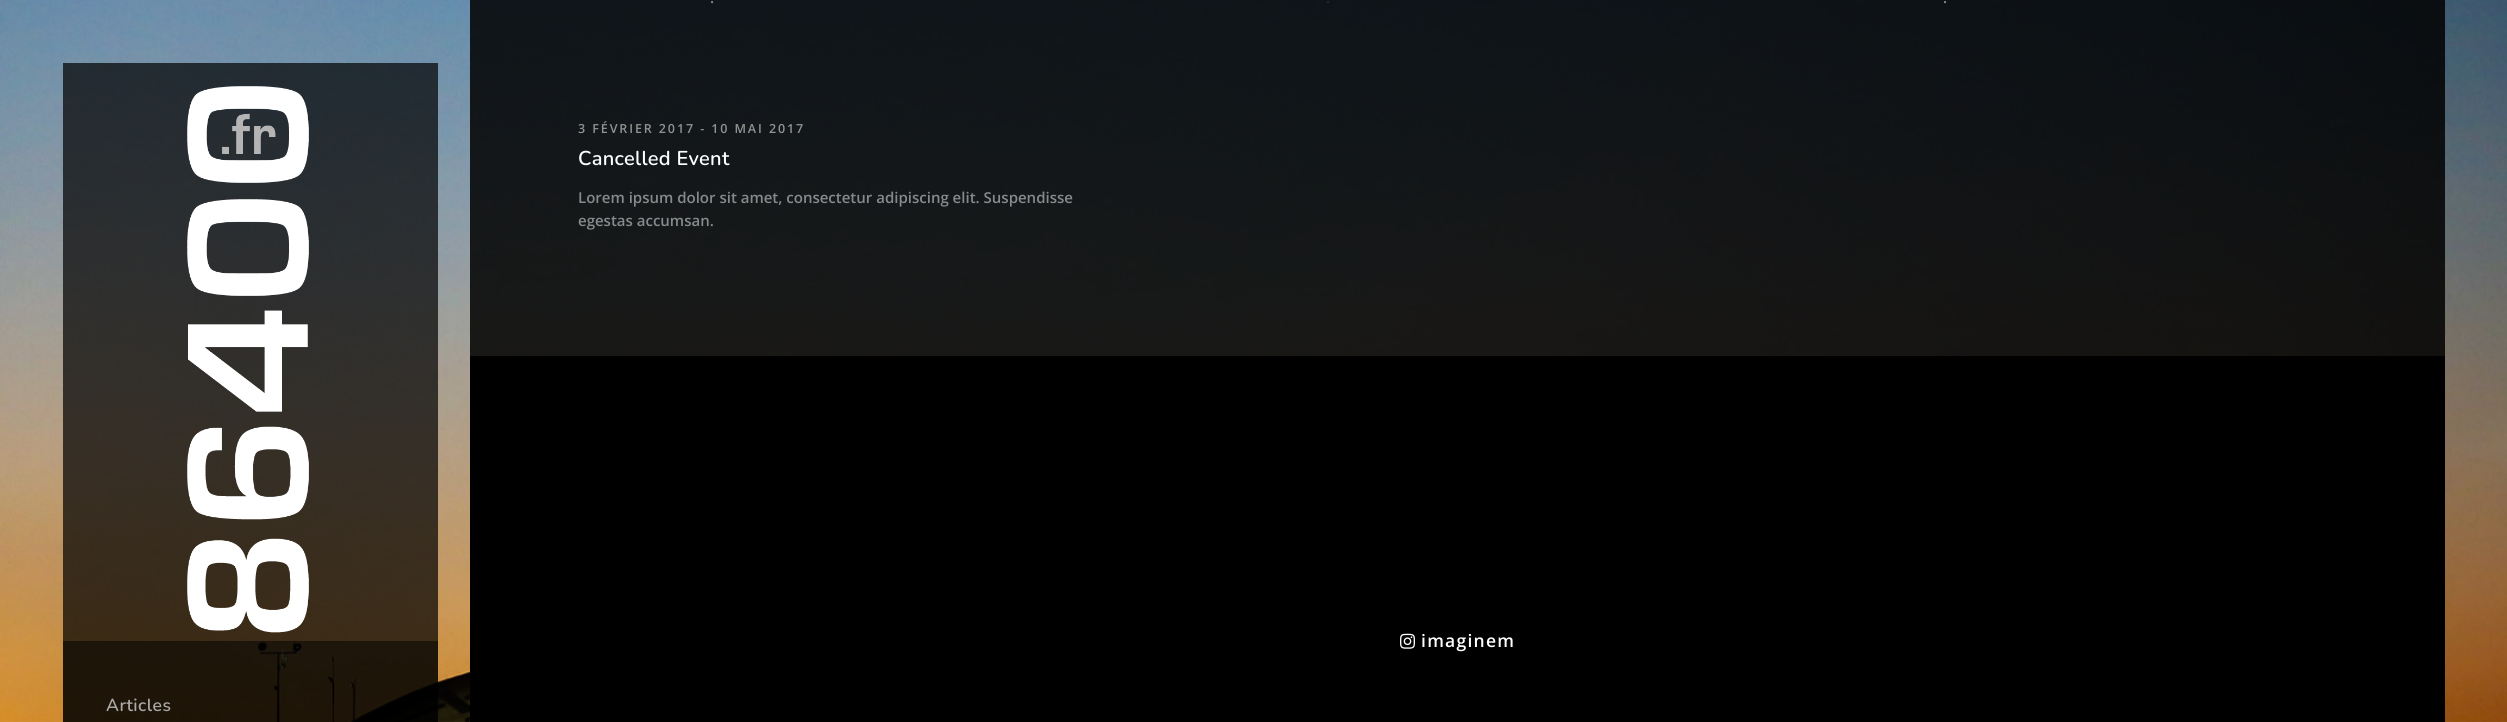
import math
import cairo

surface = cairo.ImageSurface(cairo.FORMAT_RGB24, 2507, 722)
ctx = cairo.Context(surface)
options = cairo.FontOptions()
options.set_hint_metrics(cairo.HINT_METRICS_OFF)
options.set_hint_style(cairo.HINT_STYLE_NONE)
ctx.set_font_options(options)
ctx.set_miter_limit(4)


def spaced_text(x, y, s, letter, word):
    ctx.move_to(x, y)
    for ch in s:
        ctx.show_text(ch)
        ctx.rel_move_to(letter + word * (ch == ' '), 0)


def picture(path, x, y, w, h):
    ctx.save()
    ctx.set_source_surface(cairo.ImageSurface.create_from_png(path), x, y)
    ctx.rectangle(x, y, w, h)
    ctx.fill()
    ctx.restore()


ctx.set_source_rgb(1, 1, 1)
ctx.paint()
picture("img1.png", 0, 0, 2507, 722)
ctx.set_source_rgba(0, 0, 0, 0.85)
ctx.rectangle(470, 0, 1975, 356)
ctx.fill()
ctx.select_font_face("Open Sans SemiBold")
ctx.set_font_size(15)
ctx.set_source_rgb(0.529, 0.541, 0.549)
ctx.move_to(710, 3)
ctx.show_text(".")
ctx.set_source_rgb(0.133, 0.157, 0.173)
ctx.move_to(1326, 3)
ctx.show_text(".")
ctx.set_source_rgb(0.529, 0.541, 0.549)
ctx.move_to(1943, 3)
ctx.show_text(".")
ctx.set_font_size(12.5)
ctx.set_source_rgb(0.573, 0.573, 0.573)
spaced_text(578, 133, "3 FÉVRIER 2017 - 10 MAI 2017", 1.9, 0)
ctx.select_font_face("Nunito SemiBold")
ctx.set_font_size(20)
ctx.set_source_rgb(1, 1, 1)
spaced_text(578, 165, "Cancelled Event", 0.25, 0)
ctx.select_font_face("Open Sans SemiBold")
ctx.set_font_size(15)
ctx.set_source_rgb(0.529, 0.541, 0.549)
ctx.move_to(578, 203)
ctx.show_text("Lorem ipsum dolor sit amet, consectetur adipiscing elit. Suspendisse")
ctx.move_to(578, 226)
ctx.show_text("egestas accumsan.")
ctx.set_source_rgb(0, 0, 0)
ctx.rectangle(470, 356, 1975, 366)
ctx.fill()
picture("img2.png", 1400, 633, 15, 16)
ctx.set_font_size(17.5)
ctx.set_source_rgb(1, 1, 1)
spaced_text(1421, 647, "imaginem", 1.25, 0)
ctx.set_source_rgba(0, 0, 0, 0.7)
ctx.rectangle(63, 63, 375, 659)
ctx.fill()
picture("img3.png", 187, 86, 122, 547)
ctx.set_source_rgba(0, 0, 0, 0.5)
ctx.rectangle(63, 641, 375, 81)
ctx.fill()
ctx.select_font_face("Nunito SemiBold")
ctx.set_source_rgb(0.663, 0.663, 0.663)
spaced_text(106, 711, "Articles", 0.5, 0)
surface.write_to_png("page.png")
